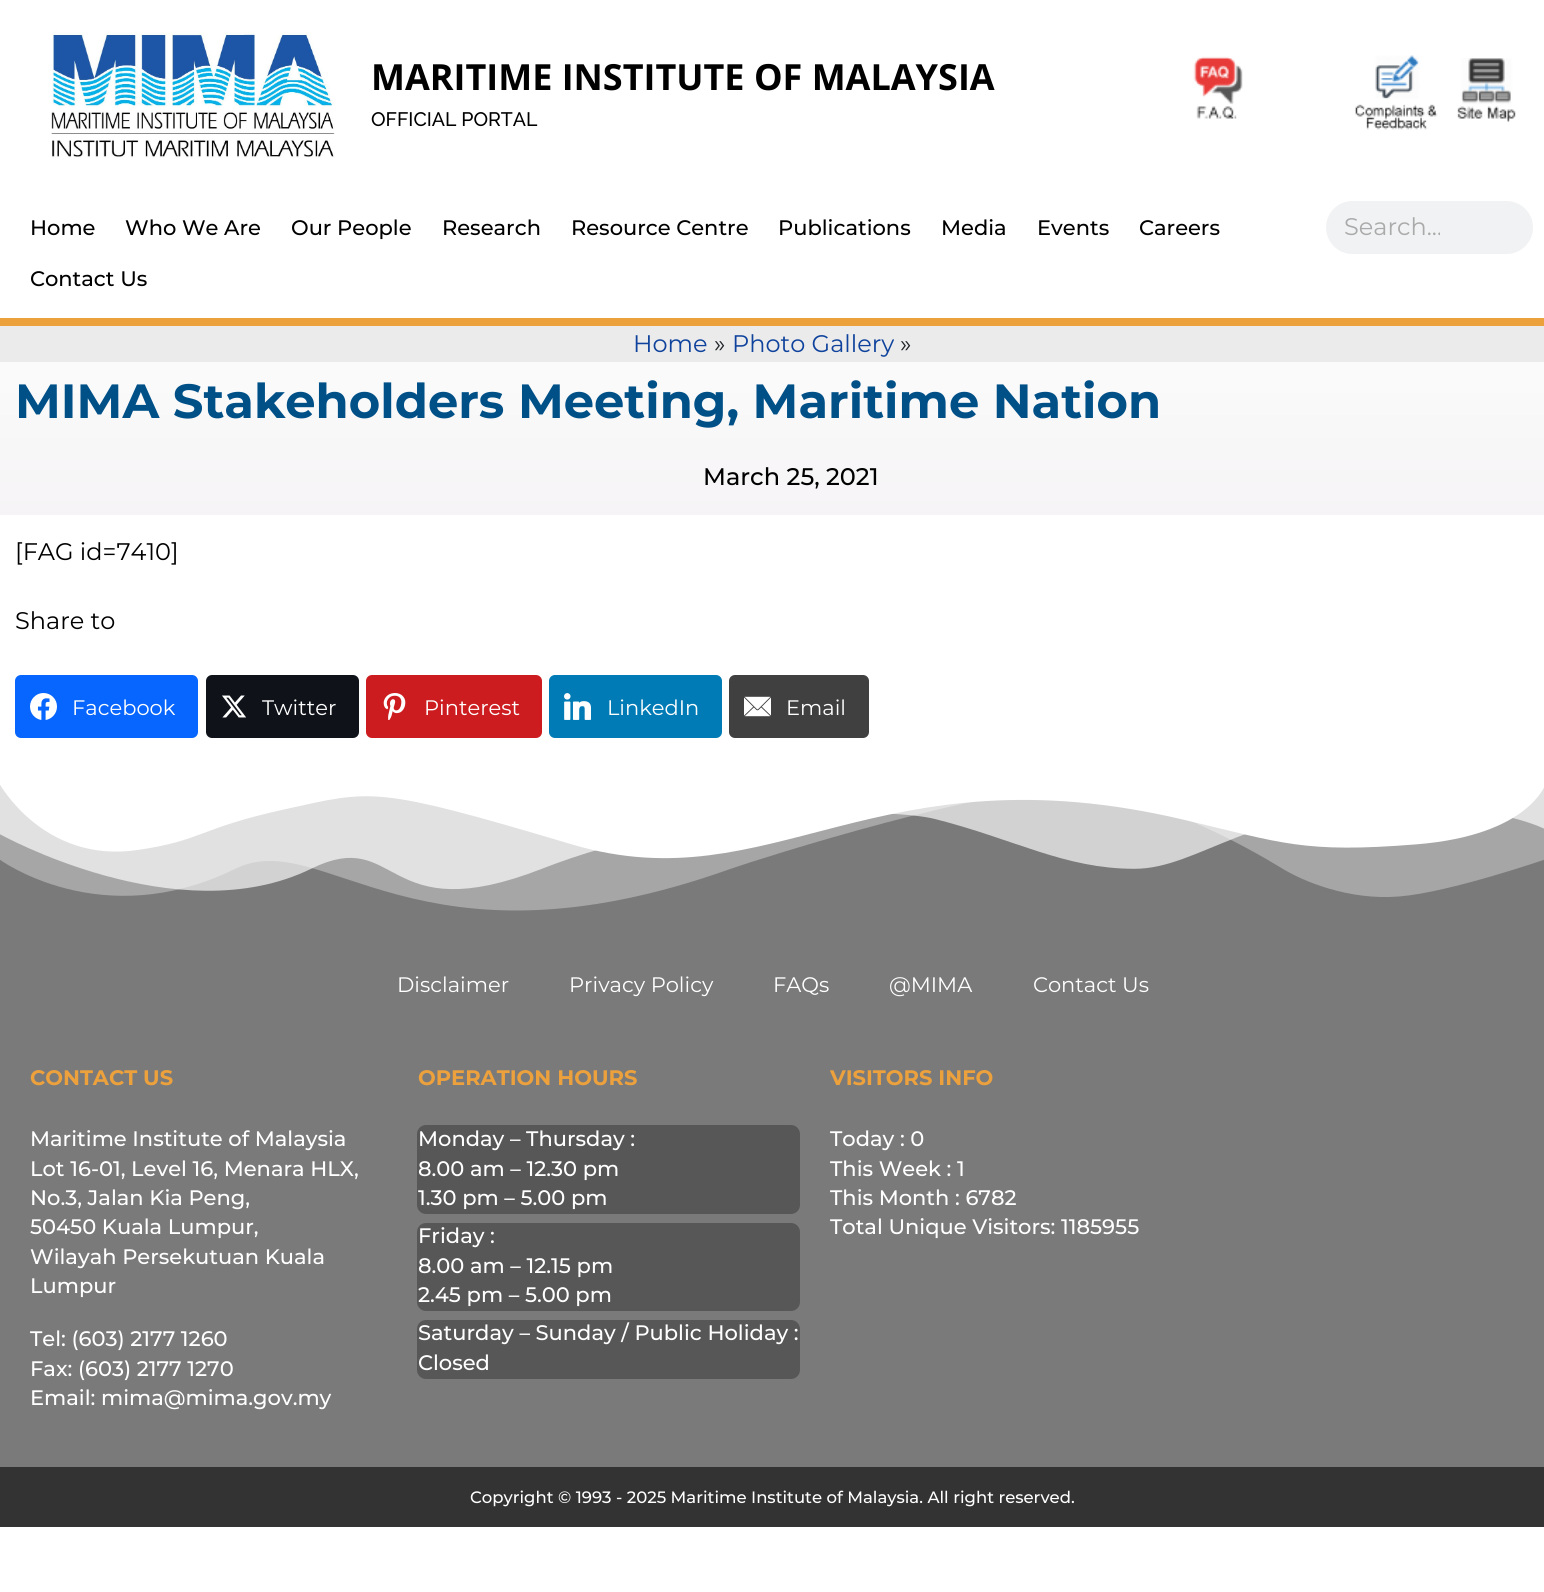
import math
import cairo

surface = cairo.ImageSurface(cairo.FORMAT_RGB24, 1544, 1592)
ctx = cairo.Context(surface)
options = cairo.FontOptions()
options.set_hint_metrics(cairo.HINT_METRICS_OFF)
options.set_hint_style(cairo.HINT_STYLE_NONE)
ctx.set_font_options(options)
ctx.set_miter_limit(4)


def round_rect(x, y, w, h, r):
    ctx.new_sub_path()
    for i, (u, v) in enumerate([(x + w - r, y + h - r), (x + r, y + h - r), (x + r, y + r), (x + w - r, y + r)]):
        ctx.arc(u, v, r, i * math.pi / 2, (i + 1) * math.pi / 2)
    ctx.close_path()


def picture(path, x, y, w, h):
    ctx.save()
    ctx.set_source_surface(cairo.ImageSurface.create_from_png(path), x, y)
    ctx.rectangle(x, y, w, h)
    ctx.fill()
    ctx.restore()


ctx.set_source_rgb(1, 1, 1)
ctx.paint()
picture("img1.png", 51, 31, 284, 127)
ctx.select_font_face("Open Sans", cairo.FONT_SLANT_NORMAL, cairo.FONT_WEIGHT_BOLD)
ctx.set_font_size(36)
ctx.set_source_rgb(0, 0, 0)
ctx.move_to(371, 90)
ctx.show_text("MARITIME INSTITUTE OF MALAYSIA")
ctx.select_font_face("Raleway Medium")
ctx.set_font_size(19.5)
ctx.move_to(371, 126)
ctx.show_text("OFFICIAL PORTAL")
picture("img2.png", 1193, 56, 50, 63)
picture("img3.png", 1355, 55, 83, 75)
picture("img4.png", 1457, 58, 59, 64)
ctx.set_source_rgb(0.925, 0.631, 0.239)
ctx.rectangle(0, 318, 1544, 8)
ctx.fill()
ctx.select_font_face("Montserrat Medium")
ctx.set_font_size(21)
ctx.set_source_rgb(0, 0, 0)
ctx.move_to(30, 235)
ctx.show_text("Home")
ctx.move_to(125, 235)
ctx.show_text("Who We Are")
ctx.move_to(291, 235)
ctx.show_text("Our People")
ctx.move_to(442, 235)
ctx.show_text("Research")
ctx.move_to(571, 235)
ctx.show_text("Resource Centre")
ctx.move_to(778, 235)
ctx.show_text("Publications")
ctx.move_to(941, 235)
ctx.show_text("Media")
ctx.move_to(1037, 235)
ctx.show_text("Events")
ctx.move_to(1139, 235)
ctx.show_text("Careers")
ctx.move_to(30, 286)
ctx.show_text("Contact Us")
ctx.set_source_rgb(0.945, 0.949, 0.953)
round_rect(1326, 201, 207, 53, 26.5)
ctx.fill()
ctx.save()
ctx.rectangle(1344, 213, 96, 29)
ctx.clip()
ctx.select_font_face("Montserrat")
ctx.set_font_size(24)
ctx.set_source_rgb(0.667, 0.667, 0.667)
ctx.move_to(1344, 235)
ctx.show_text("Search...")
ctx.restore()
ctx.set_source_rgb(0.918, 0.918, 0.918)
ctx.rectangle(0, 326, 1544, 36)
ctx.fill()
ctx.select_font_face("Montserrat")
ctx.set_font_size(24)
ctx.set_source_rgb(0.055, 0.259, 0.612)
ctx.move_to(633, 352)
ctx.show_text("Home")
ctx.set_source_rgb(0.129, 0.145, 0.161)
ctx.move_to(714, 352)
ctx.show_text("»")
ctx.set_source_rgb(0.055, 0.259, 0.612)
ctx.move_to(732, 352)
ctx.show_text("Photo Gallery")
ctx.set_source_rgb(0.129, 0.145, 0.161)
ctx.move_to(900, 352)
ctx.show_text("»")
gradient = cairo.LinearGradient(773, 361, 773, 515)
gradient.add_color_stop_rgba(0, 0.984, 0.984, 0.984, 1)
gradient.add_color_stop_rgba(1, 0.965, 0.957, 0.965, 1)
ctx.set_source(gradient)
ctx.rectangle(0, 362, 1544, 153)
ctx.fill()
ctx.select_font_face("Montserrat", cairo.FONT_SLANT_NORMAL, cairo.FONT_WEIGHT_BOLD)
ctx.set_font_size(48)
ctx.set_source_rgb(0, 0.314, 0.533)
ctx.move_to(15, 418)
ctx.show_text("MIMA Stakeholders Meeting, Maritime Nation")
ctx.select_font_face("Montserrat Medium")
ctx.set_font_size(24)
ctx.set_source_rgb(0, 0, 0)
ctx.move_to(703, 485)
ctx.show_text("March 25, 2021")
ctx.select_font_face("Montserrat")
ctx.move_to(15, 560)
ctx.show_text("[FAG id=7410]")
ctx.move_to(15, 629)
ctx.show_text("Share to")
ctx.set_source_rgb(0.031, 0.4, 1)
round_rect(15, 675, 183, 63, 6)
ctx.fill()
picture("img5.png", 30, 693, 27, 27)
ctx.set_font_size(21)
ctx.set_source_rgb(1, 1, 1)
ctx.move_to(72, 715)
ctx.show_text("Facebook")
ctx.set_source_rgb(0.059, 0.078, 0.098)
round_rect(206, 675, 153, 63, 6)
ctx.fill()
picture("img6.png", 222, 695, 24, 23)
ctx.set_source_rgb(1, 1, 1)
ctx.move_to(262, 715)
ctx.show_text("Twitter")
ctx.set_source_rgb(0.804, 0.11, 0.122)
round_rect(366, 675, 176, 63, 6)
ctx.fill()
picture("img7.png", 383, 693, 23, 27)
ctx.set_source_rgb(1, 1, 1)
ctx.move_to(424, 715)
ctx.show_text("Pinterest")
ctx.set_source_rgb(0, 0.482, 0.714)
round_rect(549, 675, 173, 63, 6)
ctx.fill()
picture("img8.png", 564, 693, 27, 27)
ctx.set_source_rgb(1, 1, 1)
ctx.move_to(607, 715)
ctx.show_text("LinkedIn")
ctx.set_source_rgb(0.251, 0.251, 0.251)
round_rect(729, 675, 140, 63, 6)
ctx.fill()
picture("img9.png", 744, 696, 27, 21)
ctx.set_source_rgb(1, 1, 1)
ctx.move_to(786, 715)
ctx.show_text("Email")
ctx.set_source_rgb(0.478, 0.478, 0.478)
ctx.rectangle(0, 785, 1544, 682)
ctx.fill()
picture("img10.png", 0, 785, 1544, 126)
ctx.set_source_rgb(1, 1, 1)
ctx.move_to(397, 992)
ctx.show_text("Disclaimer")
ctx.move_to(569, 992)
ctx.show_text("Privacy Policy")
ctx.move_to(773, 992)
ctx.show_text("FAQs")
ctx.move_to(889, 992)
ctx.show_text("@MIMA")
ctx.move_to(1033, 992)
ctx.show_text("Contact Us")
ctx.select_font_face("Montserrat", cairo.FONT_SLANT_NORMAL, cairo.FONT_WEIGHT_BOLD)
ctx.set_source_rgb(0.925, 0.631, 0.239)
ctx.move_to(30, 1085)
ctx.show_text("CONTACT US")
ctx.select_font_face("Montserrat Medium")
ctx.set_source_rgb(1, 1, 1)
ctx.move_to(30, 1146)
ctx.show_text("Maritime Institute of Malaysia")
ctx.move_to(30, 1176)
ctx.show_text("Lot 16-01, Level 16, Menara HLX,")
ctx.move_to(30, 1205)
ctx.show_text("No.3, Jalan Kia Peng,")
ctx.move_to(30, 1234)
ctx.show_text("50450 Kuala Lumpur,")
ctx.move_to(30, 1264)
ctx.show_text("Wilayah Persekutuan Kuala")
ctx.move_to(30, 1293)
ctx.show_text("Lumpur")
ctx.move_to(30, 1346)
ctx.show_text("Tel: (603) 2177 1260")
ctx.move_to(30, 1376)
ctx.show_text("Fax: (603) 2177 1270")
ctx.move_to(30, 1405)
ctx.show_text("Email: mima@mima.gov.my")
ctx.select_font_face("Montserrat", cairo.FONT_SLANT_NORMAL, cairo.FONT_WEIGHT_BOLD)
ctx.set_source_rgb(0.925, 0.631, 0.239)
ctx.move_to(418, 1085)
ctx.show_text("OPERATION HOURS")
ctx.set_source_rgb(0.341, 0.341, 0.341)
round_rect(417, 1125, 383, 89, 9)
ctx.fill()
ctx.select_font_face("Montserrat Medium")
ctx.set_source_rgb(1, 1, 1)
ctx.move_to(418, 1146)
ctx.show_text("Monday – Thursday :")
ctx.move_to(418, 1176)
ctx.show_text("8.00 am – 12.30 pm")
ctx.move_to(418, 1205)
ctx.show_text("1.30 pm – 5.00 pm")
ctx.set_source_rgb(0.341, 0.341, 0.341)
round_rect(417, 1223, 383, 88, 9)
ctx.fill()
ctx.set_source_rgb(1, 1, 1)
ctx.move_to(418, 1243)
ctx.show_text("Friday :")
ctx.move_to(418, 1273)
ctx.show_text("8.00 am – 12.15 pm")
ctx.move_to(418, 1302)
ctx.show_text("2.45 pm – 5.00 pm")
ctx.set_source_rgb(0.341, 0.341, 0.341)
round_rect(417, 1320, 383, 59, 9)
ctx.fill()
ctx.set_source_rgb(1, 1, 1)
ctx.move_to(418, 1340)
ctx.show_text("Saturday – Sunday / Public Holiday :")
ctx.move_to(418, 1370)
ctx.show_text("Closed")
ctx.select_font_face("Montserrat", cairo.FONT_SLANT_NORMAL, cairo.FONT_WEIGHT_BOLD)
ctx.set_source_rgb(0.925, 0.631, 0.239)
ctx.move_to(830, 1085)
ctx.show_text("VISITORS INFO")
ctx.select_font_face("Montserrat Medium")
ctx.set_source_rgb(1, 1, 1)
ctx.move_to(830, 1146)
ctx.show_text("Today : 0")
ctx.move_to(830, 1176)
ctx.show_text("This Week : 1")
ctx.move_to(830, 1205)
ctx.show_text("This Month : 6782")
ctx.move_to(830, 1234)
ctx.show_text("Total Unique Visitors: 1185955")
ctx.set_source_rgb(0.2, 0.2, 0.2)
ctx.rectangle(0, 1467, 1544, 60)
ctx.fill()
ctx.set_font_size(16.5)
ctx.set_source_rgb(1, 1, 1)
ctx.move_to(470, 1503)
ctx.show_text("Copyright © 1993 - 2025 Maritime Institute of Malaysia. All right reserved.")
surface.write_to_png("page.png")
